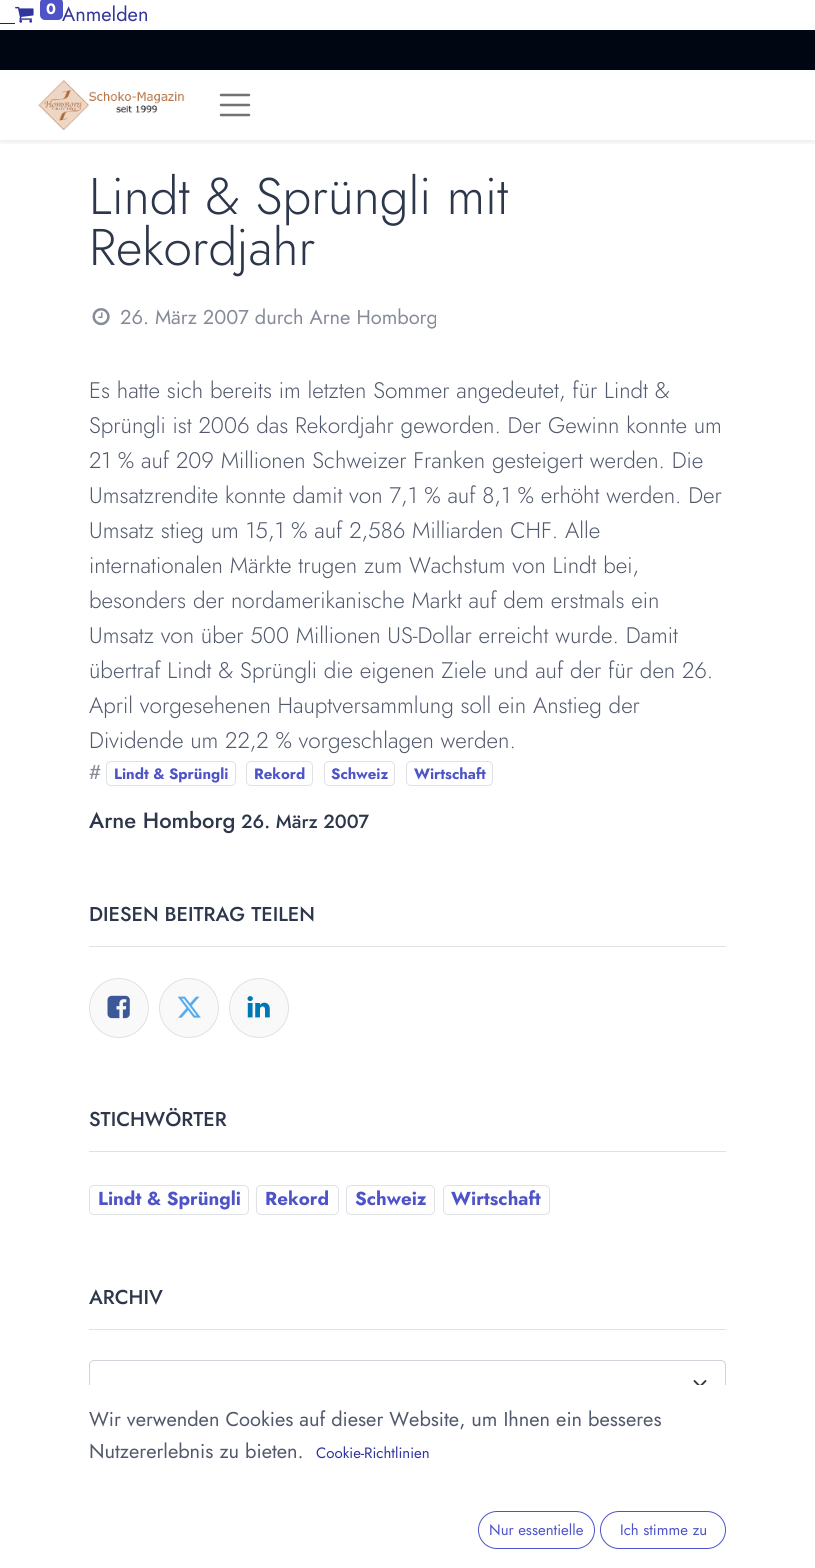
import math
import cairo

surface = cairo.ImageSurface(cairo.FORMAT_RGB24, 815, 1568)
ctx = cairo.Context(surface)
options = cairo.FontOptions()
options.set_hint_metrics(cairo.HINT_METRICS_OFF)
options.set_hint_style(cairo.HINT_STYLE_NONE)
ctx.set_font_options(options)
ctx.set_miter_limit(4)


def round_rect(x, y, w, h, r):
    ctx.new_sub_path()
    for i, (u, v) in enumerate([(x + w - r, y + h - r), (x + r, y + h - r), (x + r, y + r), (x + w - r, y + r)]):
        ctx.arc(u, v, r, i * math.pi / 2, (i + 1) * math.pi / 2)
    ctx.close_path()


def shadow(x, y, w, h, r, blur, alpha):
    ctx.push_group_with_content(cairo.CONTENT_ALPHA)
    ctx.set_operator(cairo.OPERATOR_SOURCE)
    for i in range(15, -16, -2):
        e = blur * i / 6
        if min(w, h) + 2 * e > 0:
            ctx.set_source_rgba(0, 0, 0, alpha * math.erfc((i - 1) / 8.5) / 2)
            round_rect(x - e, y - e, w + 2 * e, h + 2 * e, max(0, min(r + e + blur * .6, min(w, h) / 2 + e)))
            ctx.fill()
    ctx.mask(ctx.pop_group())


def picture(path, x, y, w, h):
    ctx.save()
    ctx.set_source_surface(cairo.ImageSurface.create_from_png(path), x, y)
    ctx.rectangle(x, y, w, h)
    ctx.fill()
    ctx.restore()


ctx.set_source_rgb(1, 1, 1)
ctx.paint()
picture("img1.png", 15, 6, 19, 17)
ctx.select_font_face("Jost")
ctx.set_font_size(20)
ctx.set_source_rgb(0.192, 0.212, 0.62)
ctx.move_to(62, 21)
ctx.show_text("Anmelden")
ctx.set_source_rgb(0.306, 0.329, 0.784)
round_rect(40, -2, 23, 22, 5)
ctx.fill()
ctx.select_font_face("Jost", cairo.FONT_SLANT_NORMAL, cairo.FONT_WEIGHT_BOLD)
ctx.set_font_size(15)
ctx.set_source_rgb(1, 1, 1)
ctx.move_to(46, 14)
ctx.show_text("0")
ctx.set_source_rgb(0.122, 0.133, 0.388)
ctx.rectangle(0, 23, 15, 1)
ctx.fill()
ctx.set_source_rgb(0, 0.031, 0.078)
ctx.rectangle(0, 30, 815, 40)
ctx.fill()
ctx.save()
ctx.rectangle(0, 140, 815, 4)
ctx.clip()
ctx.set_source_rgb(0, 0, 0)
shadow(0, 73, 815, 70, 0, 2.5, 0.07)
ctx.restore()
picture("img2.png", 38, 80, 147, 50)
ctx.new_path()
ctx.move_to(221, 95)
ctx.line_to(249, 95)
ctx.move_to(221, 105)
ctx.line_to(249, 105)
ctx.move_to(221, 115)
ctx.line_to(249, 115)
ctx.set_source_rgb(0.451, 0.451, 0.451)
ctx.set_line_width(2.5)
ctx.set_line_cap(cairo.LINE_CAP_ROUND)
ctx.stroke()
ctx.select_font_face("Jost Light")
ctx.set_font_size(51.5)
ctx.set_source_rgb(0.176, 0.216, 0.294)
ctx.move_to(89, 214)
ctx.show_text("Lindt & Sprüngli mit")
ctx.move_to(89, 265)
ctx.show_text("Rekordjahr")
picture("img3.png", 92, 308, 18, 18)
ctx.select_font_face("Jost")
ctx.set_font_size(20)
ctx.set_source_rgb(0.522, 0.545, 0.596)
ctx.move_to(120, 324)
ctx.show_text("26. März 2007 durch Arne Homborg")
ctx.select_font_face("Jost Light")
ctx.set_font_size(22.5)
ctx.set_source_rgb(0.318, 0.349, 0.424)
ctx.move_to(89, 398)
ctx.show_text("Es hatte sich bereits im letzten Sommer angedeutet, für Lindt &")
ctx.move_to(89, 433)
ctx.show_text("Sprüngli ist 2006 das Rekordjahr geworden. Der Gewinn konnte um")
ctx.move_to(89, 468)
ctx.show_text("21 % auf 209 Millionen Schweizer Franken gesteigert werden. Die")
ctx.move_to(89, 503)
ctx.show_text("Umsatzrendite konnte damit von 7,1 % auf 8,1 % erhöht werden. Der")
ctx.move_to(89, 538)
ctx.show_text("Umsatz stieg um 15,1 % auf 2,586 Milliarden CHF. Alle")
ctx.move_to(89, 573)
ctx.show_text("internationalen Märkte trugen zum Wachstum von Lindt bei,")
ctx.move_to(89, 608)
ctx.show_text("besonders der nordamerikanische Markt auf dem erstmals ein")
ctx.move_to(89, 643)
ctx.show_text("Umsatz von über 500 Millionen US-Dollar erreicht wurde. Damit")
ctx.move_to(89, 678)
ctx.show_text("übertraf Lindt & Sprüngli die eigenen Ziele und auf der für den 26.")
ctx.move_to(89, 713)
ctx.show_text("April vorgesehenen Hauptversammlung soll ein Anstieg der")
ctx.move_to(89, 748)
ctx.show_text("Dividende um 22,2 % vorgeschlagen werden.")
ctx.select_font_face("Jost")
ctx.set_font_size(20)
ctx.set_source_rgb(0.522, 0.545, 0.596)
ctx.move_to(89, 779)
ctx.show_text("#")
round_rect(106.5, 761.5, 129, 24, 4.5)
ctx.set_source_rgb(0.871, 0.886, 0.902)
ctx.set_line_width(1)
ctx.set_line_cap(cairo.LINE_CAP_BUTT)
ctx.stroke()
ctx.select_font_face("Jost", cairo.FONT_SLANT_NORMAL, cairo.FONT_WEIGHT_BOLD)
ctx.set_font_size(15)
ctx.set_source_rgb(0.306, 0.329, 0.784)
ctx.move_to(114, 779)
ctx.show_text("Lindt & Sprüngli")
round_rect(246.5, 761.5, 66, 24, 4.5)
ctx.set_source_rgb(0.871, 0.886, 0.902)
ctx.stroke()
ctx.set_source_rgb(0.306, 0.329, 0.784)
ctx.move_to(254, 779)
ctx.show_text("Rekord")
round_rect(324.5, 761.5, 70, 24, 4.5)
ctx.set_source_rgb(0.871, 0.886, 0.902)
ctx.stroke()
ctx.set_source_rgb(0.306, 0.329, 0.784)
ctx.move_to(331, 779)
ctx.show_text("Schweiz")
round_rect(406.5, 761.5, 86, 24, 4.5)
ctx.set_source_rgb(0.871, 0.886, 0.902)
ctx.stroke()
ctx.set_source_rgb(0.306, 0.329, 0.784)
ctx.move_to(414, 779)
ctx.show_text("Wirtschaft")
ctx.select_font_face("Jost Medium")
ctx.set_font_size(22)
ctx.set_source_rgb(0.176, 0.216, 0.294)
ctx.move_to(89, 828)
ctx.show_text("Arne Homborg")
ctx.set_font_size(19)
ctx.move_to(241, 828)
ctx.show_text("26. März 2007")
ctx.set_source_rgb(0.871, 0.886, 0.902)
ctx.rectangle(89, 946, 637, 1)
ctx.fill()
ctx.set_font_size(20)
ctx.set_source_rgb(0.176, 0.216, 0.294)
ctx.move_to(89, 921)
ctx.show_text("DIESEN BEITRAG TEILEN")
ctx.set_source_rgb(0.973, 0.976, 0.98)
ctx.new_path()
ctx.arc(119, 1008, 29.5, 0, 2 * math.pi)
ctx.fill_preserve()
ctx.set_source_rgb(0.871, 0.886, 0.902)
ctx.stroke()
picture("img4.png", 107, 995, 23, 24)
ctx.set_source_rgb(0.973, 0.976, 0.98)
ctx.arc(189, 1008, 29.5, 0, 2 * math.pi)
ctx.fill_preserve()
ctx.set_source_rgb(0.871, 0.886, 0.902)
ctx.stroke()
picture("img5.png", 177, 996, 24, 22)
ctx.set_source_rgb(0.973, 0.976, 0.98)
ctx.arc(259, 1008, 29.5, 0, 2 * math.pi)
ctx.fill_preserve()
ctx.set_source_rgb(0.871, 0.886, 0.902)
ctx.stroke()
picture("img6.png", 247, 996, 23, 22)
ctx.rectangle(89, 1151, 637, 1)
ctx.fill()
ctx.set_source_rgb(0.176, 0.216, 0.294)
ctx.move_to(89, 1126)
ctx.show_text("STICHWÖRTER")
round_rect(89.5, 1185.5, 159, 29, 4.5)
ctx.set_source_rgb(0.871, 0.886, 0.902)
ctx.stroke()
ctx.select_font_face("Jost", cairo.FONT_SLANT_NORMAL, cairo.FONT_WEIGHT_BOLD)
ctx.set_font_size(18.75)
ctx.set_source_rgb(0.306, 0.329, 0.784)
ctx.move_to(98, 1205)
ctx.show_text("Lindt & Sprüngli")
round_rect(256.5, 1185.5, 82, 29, 4.5)
ctx.set_source_rgb(0.871, 0.886, 0.902)
ctx.stroke()
ctx.set_source_rgb(0.306, 0.329, 0.784)
ctx.move_to(265, 1205)
ctx.show_text("Rekord")
round_rect(346.5, 1185.5, 88, 29, 4.5)
ctx.set_source_rgb(0.871, 0.886, 0.902)
ctx.stroke()
ctx.set_source_rgb(0.306, 0.329, 0.784)
ctx.move_to(355, 1205)
ctx.show_text("Schweiz")
round_rect(443.5, 1185.5, 106, 29, 4.5)
ctx.set_source_rgb(0.871, 0.886, 0.902)
ctx.stroke()
ctx.set_source_rgb(0.306, 0.329, 0.784)
ctx.move_to(451, 1205)
ctx.show_text("Wirtschaft")
ctx.set_source_rgb(0.871, 0.886, 0.902)
ctx.rectangle(89, 1329, 637, 1)
ctx.fill()
ctx.select_font_face("Jost Medium")
ctx.set_font_size(20)
ctx.set_source_rgb(0.176, 0.216, 0.294)
ctx.move_to(89, 1304)
ctx.show_text("ARCHIV")
ctx.new_path()
ctx.move_to(694.5, 1381)
ctx.line_to(700, 1386.5)
ctx.line_to(705.5, 1381)
ctx.set_source_rgb(0.204, 0.227, 0.251)
ctx.set_line_width(1.9)
ctx.set_line_cap(cairo.LINE_CAP_ROUND)
ctx.set_line_join(cairo.LINE_JOIN_ROUND)
ctx.stroke()
round_rect(89.5, 1360.5, 636, 47, 4.5)
ctx.set_source_rgb(0.808, 0.831, 0.855)
ctx.set_line_width(1)
ctx.set_line_cap(cairo.LINE_CAP_BUTT)
ctx.set_line_join(cairo.LINE_JOIN_MITER)
ctx.stroke()
ctx.set_source_rgb(1, 1, 1)
ctx.rectangle(89, 1385, 637, 23)
ctx.fill()
ctx.select_font_face("Jost")
ctx.set_source_rgb(0.318, 0.349, 0.424)
ctx.move_to(89, 1426)
ctx.show_text("Wir verwenden Cookies auf dieser Website, um Ihnen ein besseres")
ctx.move_to(89, 1458)
ctx.show_text("Nutzererlebnis zu bieten.")
ctx.set_font_size(15)
ctx.set_source_rgb(0.192, 0.212, 0.62)
ctx.move_to(316, 1458)
ctx.show_text("Cookie-Richtlinien")
round_rect(478.5, 1511.5, 116, 37, 18.5)
ctx.set_source_rgb(0.306, 0.329, 0.784)
ctx.stroke()
ctx.move_to(489, 1535)
ctx.show_text("Nur essentielle")
round_rect(600.5, 1511.5, 125, 37, 18.5)
ctx.stroke()
ctx.move_to(620, 1535)
ctx.show_text("Ich stimme zu")
surface.write_to_png("page.png")
